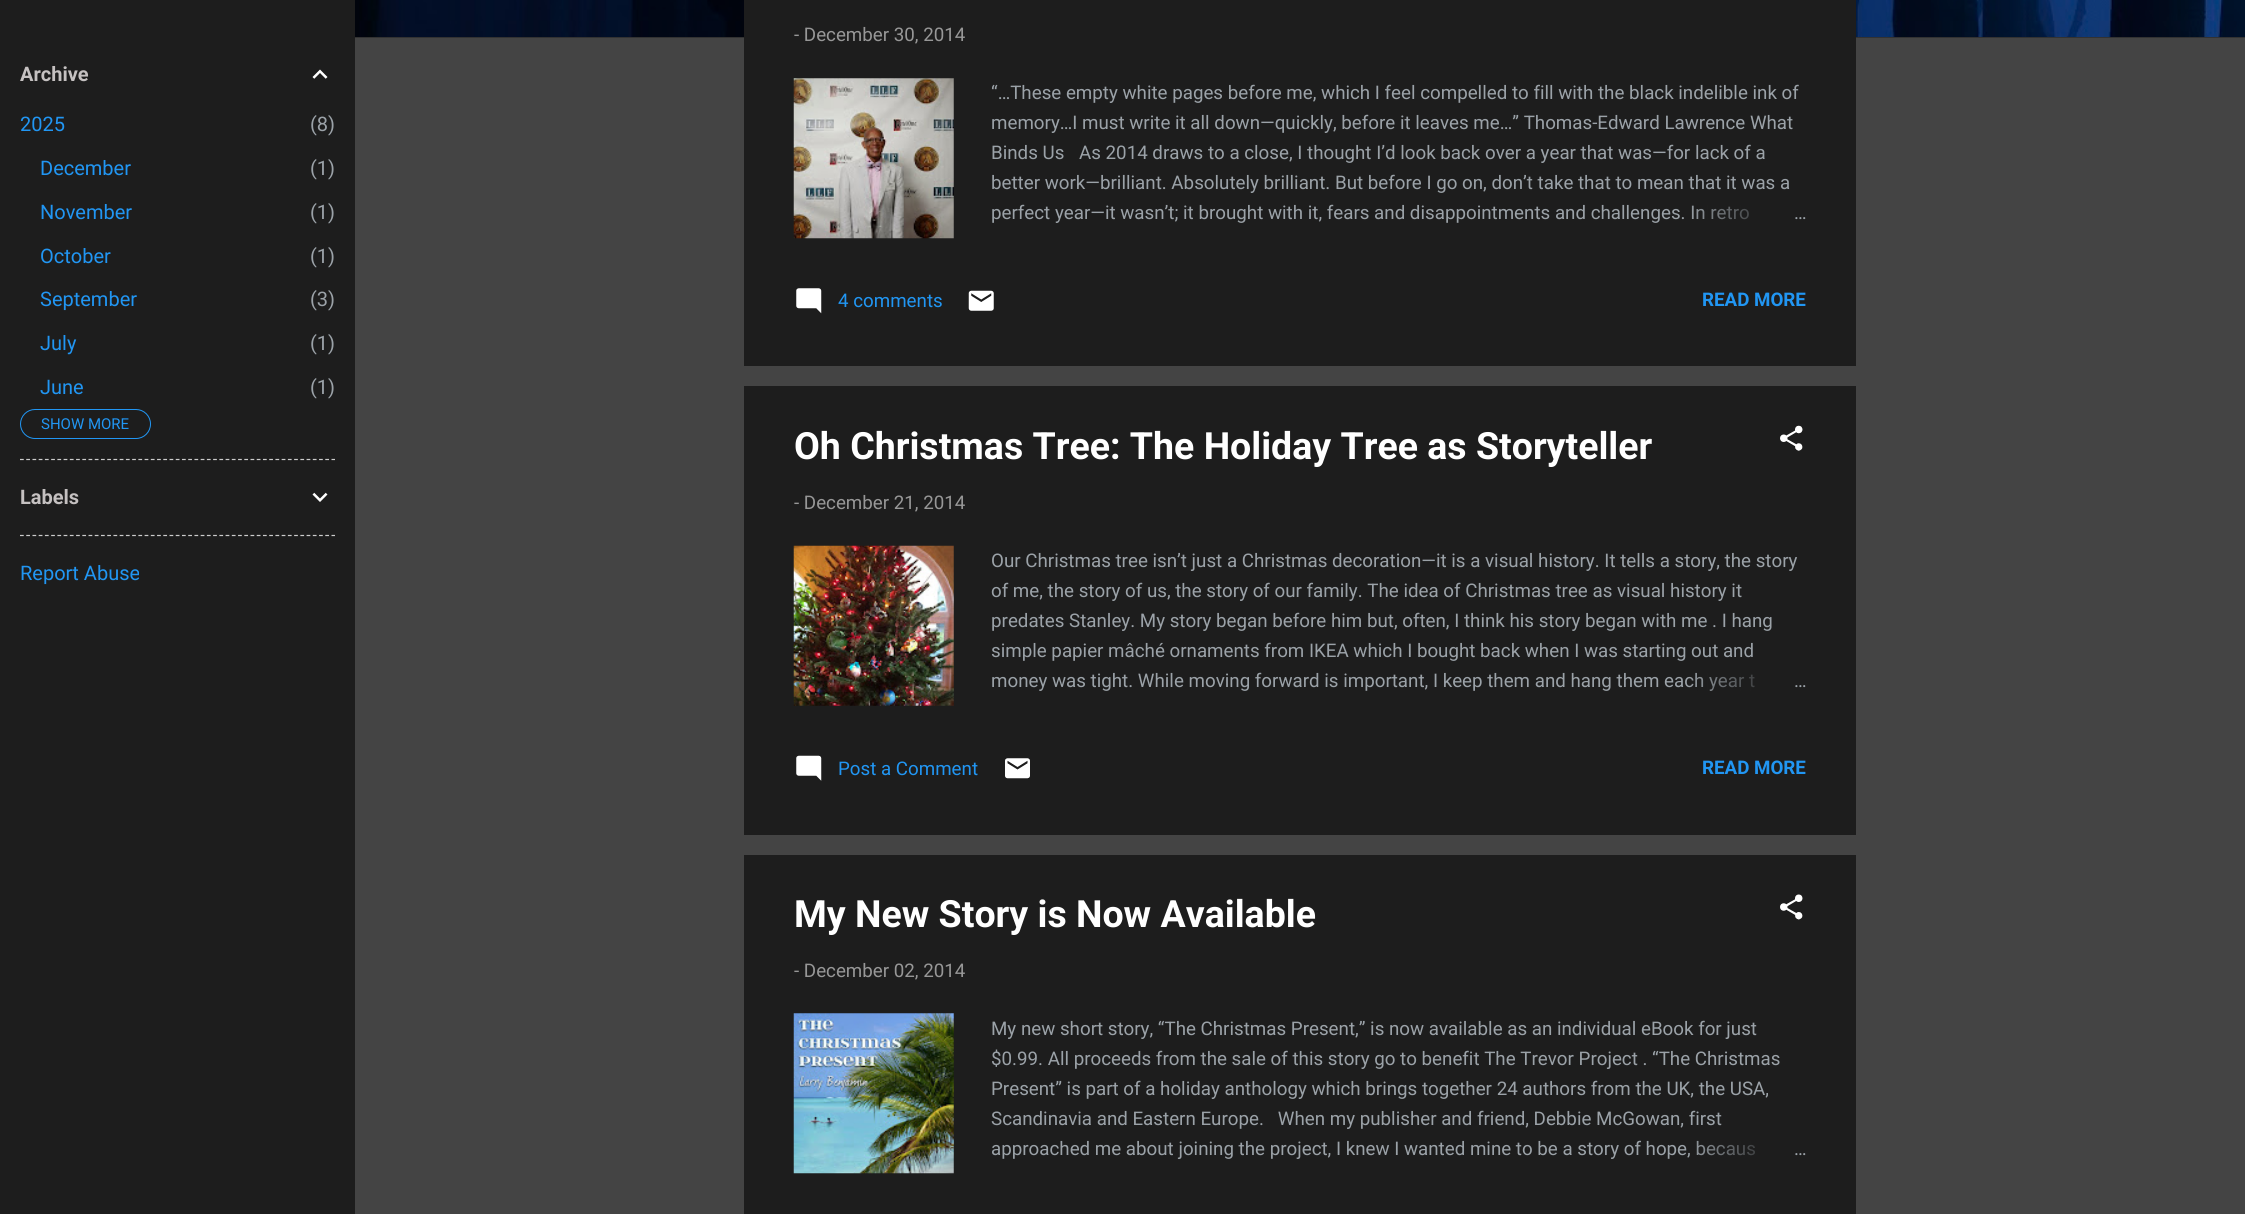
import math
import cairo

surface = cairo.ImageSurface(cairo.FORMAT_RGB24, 2245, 1214)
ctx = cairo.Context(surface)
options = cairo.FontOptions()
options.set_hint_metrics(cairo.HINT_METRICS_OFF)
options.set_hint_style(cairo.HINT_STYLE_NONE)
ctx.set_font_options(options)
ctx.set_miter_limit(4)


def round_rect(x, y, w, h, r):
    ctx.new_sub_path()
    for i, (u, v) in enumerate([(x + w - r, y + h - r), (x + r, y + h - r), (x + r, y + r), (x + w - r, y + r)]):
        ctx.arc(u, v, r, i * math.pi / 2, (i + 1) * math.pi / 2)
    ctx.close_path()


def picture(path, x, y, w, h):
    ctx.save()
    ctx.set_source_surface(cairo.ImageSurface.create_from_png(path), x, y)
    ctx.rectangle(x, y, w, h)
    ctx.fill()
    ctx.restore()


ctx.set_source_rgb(0.267, 0.267, 0.267)
ctx.paint()
ctx.set_source_rgb(0.196, 0.196, 0.196)
ctx.rectangle(355, 37, 1890, 1)
ctx.fill()
ctx.set_source_rgb(0.114, 0.114, 0.114)
ctx.rectangle(0, 0, 355, 1214)
ctx.fill()
ctx.select_font_face("Roboto", cairo.FONT_SLANT_NORMAL, cairo.FONT_WEIGHT_BOLD)
ctx.set_font_size(20)
ctx.set_source_rgb(0.773, 0.757, 0.757)
ctx.move_to(20, 81)
ctx.show_text("Archive")
picture("img1.png", 312, 69, 16, 10)
ctx.select_font_face("Roboto")
ctx.set_source_rgb(0.129, 0.588, 0.953)
ctx.move_to(20, 131)
ctx.show_text("2025")
ctx.set_source_rgb(0.608, 0.635, 0.659)
ctx.move_to(310, 131)
ctx.show_text("(8)")
ctx.set_source_rgb(0.129, 0.588, 0.953)
ctx.move_to(40, 175)
ctx.show_text("December")
ctx.set_source_rgb(0.608, 0.635, 0.659)
ctx.move_to(310, 175)
ctx.show_text("(1)")
ctx.set_source_rgb(0.129, 0.588, 0.953)
ctx.move_to(40, 219)
ctx.show_text("November")
ctx.set_source_rgb(0.608, 0.635, 0.659)
ctx.move_to(310, 219)
ctx.show_text("(1)")
ctx.set_source_rgb(0.129, 0.588, 0.953)
ctx.move_to(40, 263)
ctx.show_text("October")
ctx.set_source_rgb(0.608, 0.635, 0.659)
ctx.move_to(310, 263)
ctx.show_text("(1)")
ctx.set_source_rgb(0.129, 0.588, 0.953)
ctx.move_to(40, 306)
ctx.show_text("September")
ctx.set_source_rgb(0.608, 0.635, 0.659)
ctx.move_to(310, 306)
ctx.show_text("(3)")
ctx.set_source_rgb(0.129, 0.588, 0.953)
ctx.move_to(40, 350)
ctx.show_text("July")
ctx.set_source_rgb(0.608, 0.635, 0.659)
ctx.move_to(310, 350)
ctx.show_text("(1)")
ctx.set_source_rgb(0.129, 0.588, 0.953)
ctx.move_to(40, 394)
ctx.show_text("June")
ctx.set_source_rgb(0.608, 0.635, 0.659)
ctx.move_to(310, 394)
ctx.show_text("(1)")
round_rect(20.5, 409.5, 130, 29, 14.5)
ctx.set_source_rgb(0.129, 0.588, 0.953)
ctx.set_line_width(1)
ctx.stroke()
ctx.set_font_size(15)
ctx.move_to(41, 429)
ctx.show_text("SHOW MORE")
ctx.new_path()
ctx.move_to(20, 459.5)
ctx.line_to(335, 459.5)
ctx.set_source_rgb(0.8, 0.8, 0.8)
ctx.set_line_width(1.2)
ctx.set_dash([3.75, 2.48])
ctx.stroke()
ctx.select_font_face("Roboto", cairo.FONT_SLANT_NORMAL, cairo.FONT_WEIGHT_BOLD)
ctx.set_font_size(20)
ctx.set_source_rgb(0.773, 0.757, 0.757)
ctx.move_to(20, 504)
ctx.show_text("Labels")
picture("img2.png", 312, 492, 16, 10)
ctx.new_path()
ctx.move_to(20, 535.5)
ctx.line_to(335, 535.5)
ctx.set_source_rgb(0.8, 0.8, 0.8)
ctx.stroke()
ctx.select_font_face("Roboto")
ctx.set_source_rgb(0.129, 0.588, 0.953)
ctx.move_to(20, 580)
ctx.show_text("Report Abuse")
picture("img3.png", 355, 0, 1890, 37)
ctx.set_source_rgb(0.114, 0.114, 0.114)
ctx.rectangle(744, 0, 1112, 366)
ctx.fill()
ctx.set_font_size(18.75)
ctx.set_source_rgb(0.592, 0.592, 0.592)
ctx.move_to(794, 41)
ctx.show_text("- December 30, 2014")
picture("img4.png", 793, 78, 161, 161)
ctx.set_source_rgb(0.608, 0.635, 0.659)
ctx.move_to(991, 99)
ctx.show_text("“…These empty white pages before me, which I feel compelled to fill with the black indelible ink of")
ctx.move_to(991, 129)
ctx.show_text("memory…I must write it all down—quickly, before it leaves me…” Thomas-Edward Lawrence What")
ctx.move_to(991, 159)
ctx.show_text("Binds Us")
ctx.move_to(1079, 159)
ctx.show_text("As 2014 draws to a close, I thought I’d look back over a year that was—for lack of a")
ctx.move_to(991, 189)
ctx.show_text("better work—brilliant. Absolutely brilliant. But before I go on, don’t take that to mean that it was a")
ctx.move_to(991, 219)
ctx.show_text("perfect year—it wasn’t; it brought with it, fears and disappointments and challenges. In retro")
gradient = cairo.LinearGradient(1806, 214, 1686, 214)
gradient.add_color_stop_rgba(0, 0.114, 0.114, 0.114, 1)
gradient.add_color_stop_rgba(0.2, 0.114, 0.114, 0.114, 1)
gradient.add_color_stop_rgba(1, 0.114, 0.114, 0.114, 0)
ctx.set_source(gradient)
ctx.rectangle(1692, 205, 58, 15)
ctx.fill()
ctx.set_source_rgb(0.608, 0.635, 0.659)
ctx.move_to(1794, 219)
ctx.show_text("…")
picture("img5.png", 796, 288, 26, 26)
ctx.set_source_rgb(0.129, 0.588, 0.953)
ctx.move_to(838, 307)
ctx.show_text("4 comments")
picture("img6.png", 968, 290, 26, 21)
ctx.select_font_face("Roboto", cairo.FONT_SLANT_NORMAL, cairo.FONT_WEIGHT_BOLD)
ctx.move_to(1702, 306)
ctx.show_text("READ MORE")
ctx.set_source_rgb(0.114, 0.114, 0.114)
ctx.rectangle(744, 386, 1112, 449)
ctx.fill()
ctx.set_font_size(37.5)
ctx.set_source_rgb(1, 1, 1)
ctx.move_to(794, 459)
ctx.show_text("Oh Christmas Tree: The Holiday Tree as Storyteller")
picture("img7.png", 1780, 425, 23, 26)
ctx.select_font_face("Roboto")
ctx.set_font_size(18.75)
ctx.set_source_rgb(0.592, 0.592, 0.592)
ctx.move_to(794, 509)
ctx.show_text("- December 21, 2014")
picture("img8.png", 793, 545, 161, 161)
ctx.set_source_rgb(0.608, 0.635, 0.659)
ctx.move_to(991, 567)
ctx.show_text("Our Christmas tree isn’t just a Christmas decoration—it is a visual history. It tells a story, the story")
ctx.move_to(991, 597)
ctx.show_text("of me, the story of us, the story of our family. The idea of Christmas tree as visual history it")
ctx.move_to(991, 627)
ctx.show_text("predates Stanley. My story began before him but, often, I think his story began with me . I hang")
ctx.move_to(991, 657)
ctx.show_text("simple papier mâché ornaments from IKEA which I bought back when I was starting out and")
ctx.move_to(991, 687)
ctx.show_text("money was tight. While moving forward is important, I keep them and hang them each year t")
gradient = cairo.LinearGradient(1806, 681, 1686, 681)
gradient.add_color_stop_rgba(0, 0.114, 0.114, 0.114, 1)
gradient.add_color_stop_rgba(0.2, 0.114, 0.114, 0.114, 1)
gradient.add_color_stop_rgba(1, 0.114, 0.114, 0.114, 0)
ctx.set_source(gradient)
ctx.rectangle(1688, 673, 67, 18)
ctx.fill()
ctx.set_source_rgb(0.608, 0.635, 0.659)
ctx.move_to(1794, 687)
ctx.show_text("…")
picture("img9.png", 796, 755, 26, 26)
ctx.set_source_rgb(0.129, 0.588, 0.953)
ctx.move_to(838, 775)
ctx.show_text("Post a Comment")
picture("img10.png", 1005, 758, 25, 21)
ctx.select_font_face("Roboto", cairo.FONT_SLANT_NORMAL, cairo.FONT_WEIGHT_BOLD)
ctx.move_to(1702, 774)
ctx.show_text("READ MORE")
ctx.set_source_rgb(0.114, 0.114, 0.114)
ctx.rectangle(744, 855, 1112, 359)
ctx.fill()
ctx.set_font_size(37.5)
ctx.set_source_rgb(1, 1, 1)
ctx.move_to(794, 927)
ctx.show_text("My New Story is Now Available")
picture("img11.png", 1780, 894, 23, 26)
ctx.select_font_face("Roboto")
ctx.set_font_size(18.75)
ctx.set_source_rgb(0.592, 0.592, 0.592)
ctx.move_to(794, 977)
ctx.show_text("- December 02, 2014")
picture("img12.png", 793, 1013, 161, 161)
ctx.set_source_rgb(0.608, 0.635, 0.659)
ctx.move_to(991, 1035)
ctx.show_text("My new short story, “The Christmas Present,” is now available as an individual eBook for just")
ctx.move_to(991, 1065)
ctx.show_text("$0.99. All proceeds from the sale of this story go to benefit The Trevor Project . “The Christmas")
ctx.move_to(991, 1095)
ctx.show_text("Present” is part of a holiday anthology which brings together 24 authors from the UK, the USA,")
ctx.move_to(991, 1125)
ctx.show_text("Scandinavia and Eastern Europe.   When my publisher and friend, Debbie McGowan, first")
ctx.move_to(991, 1155)
ctx.show_text("approached me about joining the project, I knew I wanted mine to be a story of hope, becaus")
gradient = cairo.LinearGradient(1806, 1149, 1686, 1149)
gradient.add_color_stop_rgba(0, 0.114, 0.114, 0.114, 1)
gradient.add_color_stop_rgba(0.2, 0.114, 0.114, 0.114, 1)
gradient.add_color_stop_rgba(1, 0.114, 0.114, 0.114, 0)
ctx.set_source(gradient)
ctx.rectangle(1688, 1141, 68, 16)
ctx.fill()
ctx.set_source_rgb(0.608, 0.635, 0.659)
ctx.move_to(1794, 1155)
ctx.show_text("…")
surface.write_to_png("page.png")
